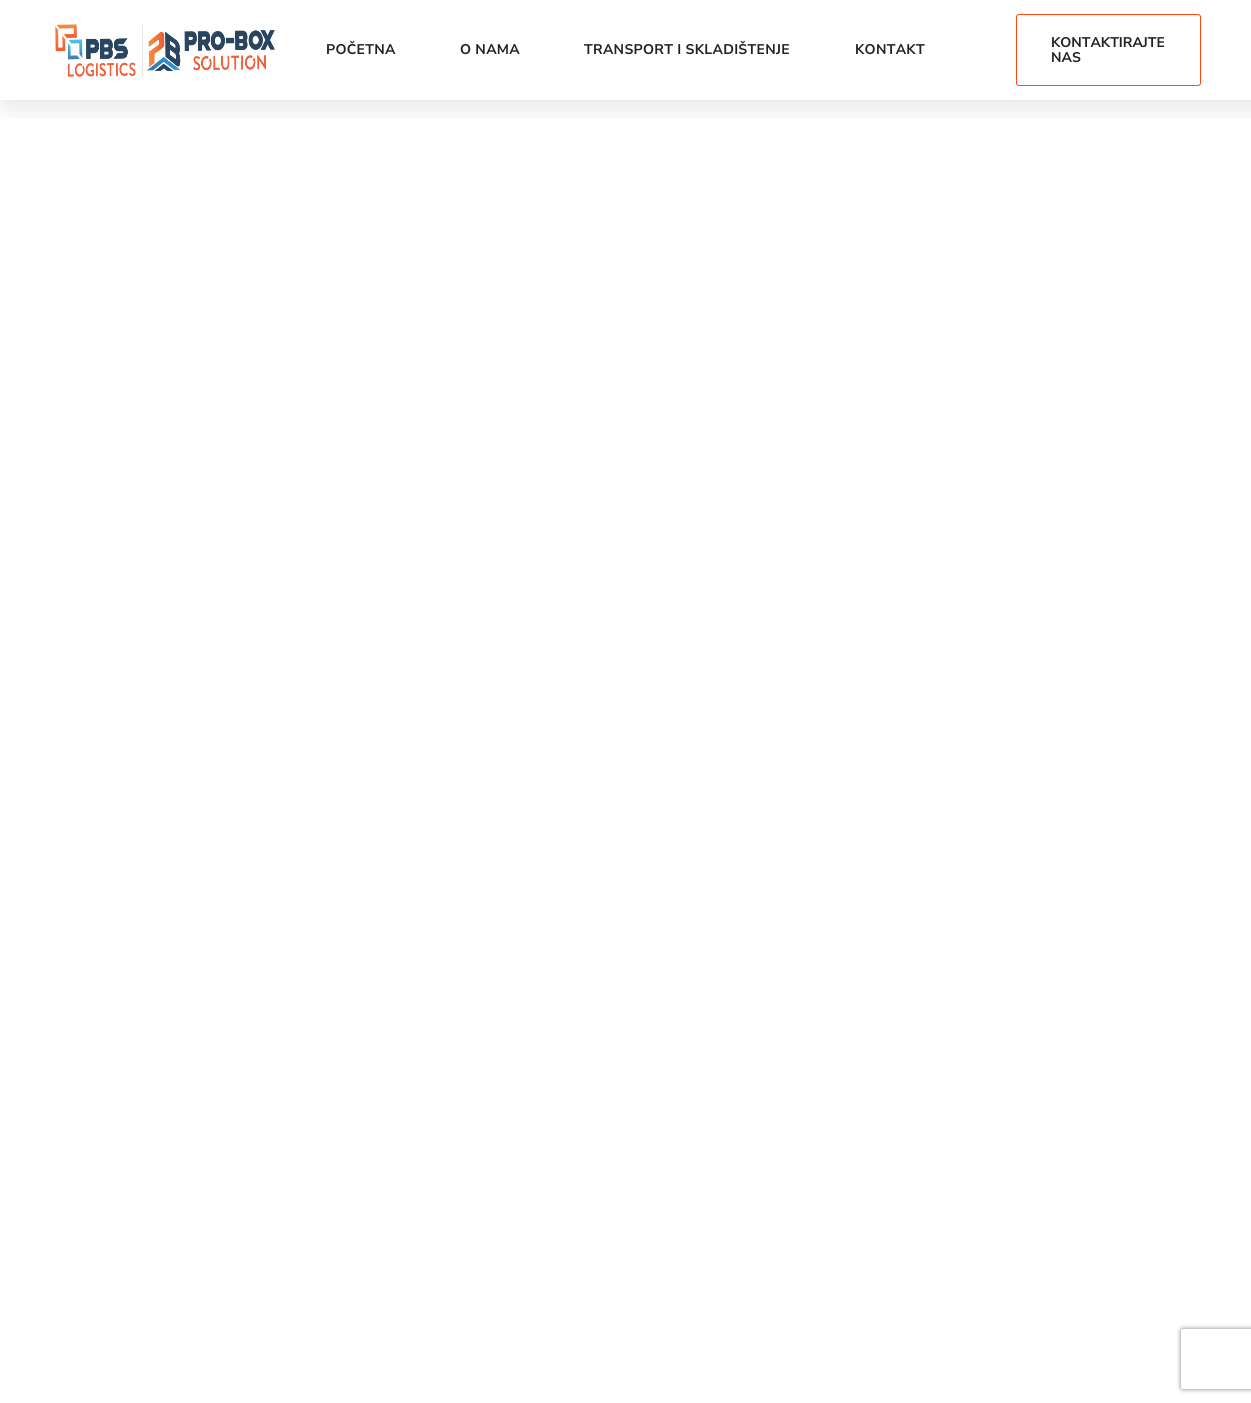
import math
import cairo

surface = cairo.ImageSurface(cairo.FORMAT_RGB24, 1251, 1403)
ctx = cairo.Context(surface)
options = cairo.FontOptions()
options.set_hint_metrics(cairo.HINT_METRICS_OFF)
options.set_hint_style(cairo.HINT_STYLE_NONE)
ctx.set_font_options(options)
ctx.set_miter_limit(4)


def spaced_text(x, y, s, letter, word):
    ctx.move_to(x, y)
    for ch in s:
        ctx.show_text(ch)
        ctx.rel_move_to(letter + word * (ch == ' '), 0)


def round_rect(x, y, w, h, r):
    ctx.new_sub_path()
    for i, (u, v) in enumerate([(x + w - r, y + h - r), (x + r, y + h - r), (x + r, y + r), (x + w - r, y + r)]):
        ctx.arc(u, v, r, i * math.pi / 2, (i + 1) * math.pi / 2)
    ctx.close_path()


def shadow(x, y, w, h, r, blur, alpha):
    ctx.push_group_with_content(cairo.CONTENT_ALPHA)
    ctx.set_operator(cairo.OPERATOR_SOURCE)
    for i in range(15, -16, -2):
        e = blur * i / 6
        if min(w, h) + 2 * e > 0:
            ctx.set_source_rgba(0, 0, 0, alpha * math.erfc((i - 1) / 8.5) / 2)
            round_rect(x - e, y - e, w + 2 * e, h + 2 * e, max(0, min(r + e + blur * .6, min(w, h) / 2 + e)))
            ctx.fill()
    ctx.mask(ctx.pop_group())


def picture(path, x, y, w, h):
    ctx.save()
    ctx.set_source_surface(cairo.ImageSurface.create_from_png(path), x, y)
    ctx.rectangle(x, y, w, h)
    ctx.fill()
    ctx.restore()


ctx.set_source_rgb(1, 1, 1)
ctx.paint()
ctx.save()
ctx.rectangle(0, 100, 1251, 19)
ctx.clip()
ctx.set_source_rgb(0, 0, 0)
shadow(6, 5, 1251, 100, 0, 15, 0.12)
ctx.restore()
picture("img1.png", 55, 24, 220, 53)
ctx.select_font_face("Nunito Sans", cairo.FONT_SLANT_NORMAL, cairo.FONT_WEIGHT_BOLD)
ctx.set_font_size(14)
ctx.set_source_rgb(0.133, 0.133, 0.133)
spaced_text(326, 54, "POČETNA", 0.3, 0)
spaced_text(460, 54, "O NAMA", 0.3, 0)
spaced_text(584, 54, "TRANSPORT I SKLADIŠTENJE", 0.3, 0)
spaced_text(855, 54, "KONTAKT", 0.3, 0)
round_rect(1016.5, 14.5, 184, 71, 2.5)
ctx.set_source_rgb(1, 0.29, 0.09)
ctx.set_line_width(1)
ctx.stroke()
ctx.set_source_rgb(0.133, 0.133, 0.133)
ctx.move_to(1051, 47)
ctx.show_text("KONTAKTIRAJTE")
ctx.move_to(1051, 62)
ctx.show_text("NAS")
ctx.save()
ctx.set_fill_rule(cairo.FILL_RULE_EVEN_ODD)
ctx.new_path()
ctx.move_to(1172, 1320)
ctx.line_to(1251, 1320)
ctx.line_to(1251, 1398)
ctx.line_to(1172, 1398)
ctx.close_path()
ctx.move_to(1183, 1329)
ctx.line_to(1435, 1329)
ctx.curve_to(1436, 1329, 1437, 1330, 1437, 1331)
ctx.line_to(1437, 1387)
ctx.curve_to(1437, 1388, 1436, 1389, 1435, 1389)
ctx.line_to(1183, 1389)
ctx.curve_to(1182, 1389, 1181, 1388, 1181, 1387)
ctx.line_to(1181, 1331)
ctx.curve_to(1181, 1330, 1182, 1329, 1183, 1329)
ctx.close_path()
ctx.clip()
ctx.set_source_rgb(0.502, 0.502, 0.502)
shadow(1181, 1329, 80, 60, 2, 2.5, 1)
ctx.restore()
surface.write_to_png("page.png")
